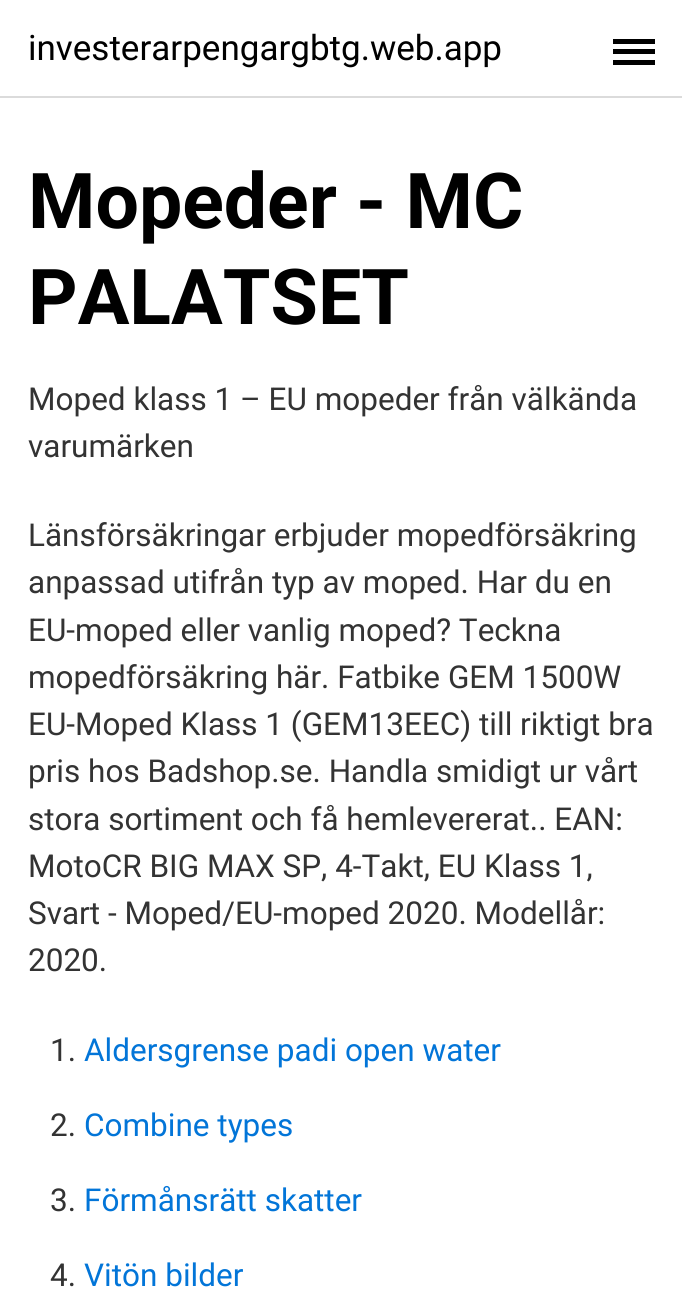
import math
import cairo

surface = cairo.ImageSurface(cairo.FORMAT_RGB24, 682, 1302)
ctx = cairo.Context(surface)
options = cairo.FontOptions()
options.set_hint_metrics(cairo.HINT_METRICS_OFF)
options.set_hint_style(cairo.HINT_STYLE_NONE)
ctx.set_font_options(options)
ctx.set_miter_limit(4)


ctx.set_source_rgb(1, 1, 1)
ctx.paint()
ctx.set_source_rgb(0.859, 0.859, 0.859)
ctx.rectangle(0, 96, 682, 2)
ctx.fill()
ctx.select_font_face("Roboto")
ctx.set_font_size(35)
ctx.set_source_rgb(0, 0, 0)
ctx.move_to(28, 60)
ctx.show_text("investerarpengargbtg.web.app")
ctx.rectangle(613, 49, 42, 5)
ctx.fill()
ctx.rectangle(613, 39, 42, 5)
ctx.fill()
ctx.rectangle(613, 60, 42, 5)
ctx.fill()
ctx.select_font_face("Roboto", cairo.FONT_SLANT_NORMAL, cairo.FONT_WEIGHT_BOLD)
ctx.set_font_size(77)
ctx.move_to(28, 228)
ctx.show_text("Mopeder - MC")
ctx.move_to(28, 324)
ctx.show_text("PALATSET")
ctx.select_font_face("Roboto")
ctx.set_font_size(31.5)
ctx.set_source_rgb(0.2, 0.2, 0.2)
ctx.move_to(28, 410)
ctx.show_text("Moped klass 1 – EU mopeder från välkända")
ctx.move_to(28, 457)
ctx.show_text("varumärken")
ctx.move_to(28, 546)
ctx.show_text("Länsförsäkringar erbjuder mopedförsäkring")
ctx.move_to(28, 593)
ctx.show_text("anpassad utifrån typ av moped. Har du en")
ctx.move_to(28, 641)
ctx.show_text("EU-moped eller vanlig moped? Teckna")
ctx.move_to(28, 688)
ctx.show_text("mopedförsäkring här. Fatbike GEM 1500W")
ctx.move_to(28, 735)
ctx.show_text("EU-Moped Klass 1 (GEM13EEC) till riktigt bra")
ctx.move_to(28, 782)
ctx.show_text("pris hos Badshop.se. Handla smidigt ur vårt")
ctx.move_to(28, 830)
ctx.show_text("stora sortiment och få hemlevererat.. EAN:")
ctx.move_to(28, 877)
ctx.show_text("MotoCR BIG MAX SP, 4-Takt, EU Klass 1,")
ctx.move_to(28, 924)
ctx.show_text("Svart - Moped/EU-moped 2020. Modellår:")
ctx.move_to(28, 971)
ctx.show_text("2020.")
ctx.move_to(50, 1061)
ctx.show_text("1.")
ctx.set_source_rgb(0.008, 0.459, 0.847)
ctx.move_to(84, 1061)
ctx.show_text("Aldersgrense padi open water")
ctx.set_source_rgb(0.2, 0.2, 0.2)
ctx.move_to(50, 1136)
ctx.show_text("2.")
ctx.set_source_rgb(0.008, 0.459, 0.847)
ctx.move_to(84, 1136)
ctx.show_text("Combine types")
ctx.set_source_rgb(0.2, 0.2, 0.2)
ctx.move_to(50, 1211)
ctx.show_text("3.")
ctx.set_source_rgb(0.008, 0.459, 0.847)
ctx.move_to(84, 1211)
ctx.show_text("Förmånsrätt skatter")
ctx.set_source_rgb(0.2, 0.2, 0.2)
ctx.move_to(50, 1286)
ctx.show_text("4.")
ctx.set_source_rgb(0.008, 0.459, 0.847)
ctx.move_to(84, 1286)
ctx.show_text("Vitön bilder")
surface.write_to_png("page.png")
